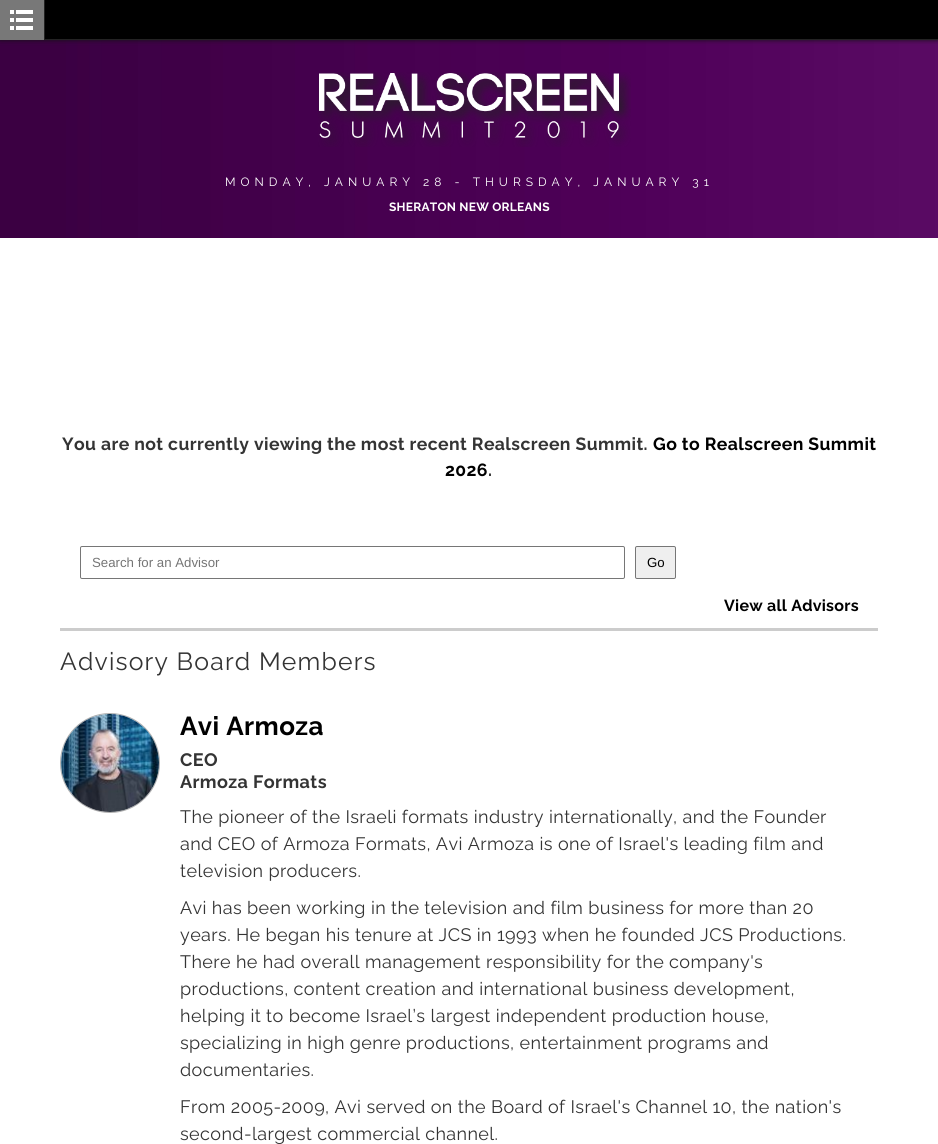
import math
import cairo

surface = cairo.ImageSurface(cairo.FORMAT_RGB24, 938, 1144)
ctx = cairo.Context(surface)
options = cairo.FontOptions()
options.set_hint_metrics(cairo.HINT_METRICS_OFF)
options.set_hint_style(cairo.HINT_STYLE_NONE)
ctx.set_font_options(options)
ctx.set_miter_limit(4)


def spaced_text(x, y, s, letter, word):
    ctx.move_to(x, y)
    for ch in s:
        ctx.show_text(ch)
        ctx.rel_move_to(letter + word * (ch == ' '), 0)


def round_rect(x, y, w, h, r):
    ctx.new_sub_path()
    for i, (u, v) in enumerate([(x + w - r, y + h - r), (x + r, y + h - r), (x + r, y + r), (x + w - r, y + r)]):
        ctx.arc(u, v, r, i * math.pi / 2, (i + 1) * math.pi / 2)
    ctx.close_path()


def shadow(x, y, w, h, r, blur, alpha):
    ctx.push_group_with_content(cairo.CONTENT_ALPHA)
    ctx.set_operator(cairo.OPERATOR_SOURCE)
    for i in range(15, -16, -2):
        e = blur * i / 6
        if min(w, h) + 2 * e > 0:
            ctx.set_source_rgba(0, 0, 0, alpha * math.erfc((i - 1) / 8.5) / 2)
            round_rect(x - e, y - e, w + 2 * e, h + 2 * e, max(0, min(r + e + blur * .6, min(w, h) / 2 + e)))
            ctx.fill()
    ctx.mask(ctx.pop_group())


def picture(path, x, y, w, h):
    ctx.save()
    ctx.set_source_surface(cairo.ImageSurface.create_from_png(path), x, y)
    ctx.rectangle(x, y, w, h)
    ctx.fill()
    ctx.restore()


ctx.set_source_rgb(1, 1, 1)
ctx.paint()
picture("img1.png", 0, 40, 938, 198)
ctx.set_source_rgb(0.071, 0.071, 0.071)
shadow(0, 0, 938, 40, 0, 2.5, 1)
ctx.set_source_rgb(0, 0, 0)
ctx.rectangle(45, 0, 893, 39)
ctx.fill()
ctx.set_source_rgb(0.137, 0.137, 0.137)
ctx.rectangle(45, 39, 893, 1)
ctx.fill()
ctx.set_source_rgb(0.471, 0.471, 0.471)
ctx.rectangle(0, 0, 44, 40)
ctx.fill()
ctx.set_source_rgb(0.137, 0.137, 0.137)
ctx.rectangle(44, 0, 1, 40)
ctx.fill()
ctx.set_source_rgb(1, 1, 1)
ctx.rectangle(10, 10, 4, 4)
ctx.fill()
ctx.rectangle(16, 10, 17, 4)
ctx.fill()
ctx.rectangle(10, 18, 4, 4)
ctx.fill()
ctx.rectangle(16, 18, 17, 4)
ctx.fill()
ctx.rectangle(10, 26, 4, 4)
ctx.fill()
ctx.rectangle(16, 26, 17, 4)
ctx.fill()
picture("img2.png", 318, 72, 313, 75)
ctx.select_font_face("Raleway")
ctx.set_font_size(12)
spaced_text(225, 186, "MONDAY, JANUARY 28 - THURSDAY, JANUARY 31", 5, 0)
ctx.select_font_face("Raleway", cairo.FONT_SLANT_NORMAL, cairo.FONT_WEIGHT_BOLD)
spaced_text(389, 211, "SHERATON NEW ORLEANS", 0.25, 0)
ctx.set_font_size(17.6)
ctx.set_source_rgb(0.204, 0.204, 0.204)
spaced_text(62, 450, "You are not currently viewing the most recent Realscreen Summit.", 0.4, 0)
ctx.set_source_rgb(0, 0, 0)
spaced_text(653, 450, "Go to Realscreen Summit", 0.4, 0)
spaced_text(445, 476, "2026", 0.4, 0)
ctx.set_source_rgb(0.204, 0.204, 0.204)
spaced_text(488, 476, ".", 0.4, 0)
ctx.set_source_rgb(0.8, 0.8, 0.8)
ctx.rectangle(60, 628, 818, 3)
ctx.fill()
round_rect(80.5, 546.5, 544, 32, 1.5)
ctx.set_source_rgb(0.463, 0.463, 0.463)
ctx.set_line_width(1)
ctx.stroke()
ctx.select_font_face("Liberation Sans")
ctx.set_font_size(13.25)
ctx.set_source_rgb(0.459, 0.459, 0.459)
ctx.move_to(92, 567)
ctx.show_text("Search for an Advisor")
ctx.set_source_rgb(0.937, 0.937, 0.937)
round_rect(635.5, 546.5, 40, 32, 1.5)
ctx.fill_preserve()
ctx.set_source_rgb(0.463, 0.463, 0.463)
ctx.stroke()
ctx.set_source_rgb(0, 0, 0)
ctx.move_to(647, 567)
ctx.show_text("Go")
ctx.select_font_face("Raleway", cairo.FONT_SLANT_NORMAL, cairo.FONT_WEIGHT_BOLD)
ctx.set_font_size(16)
spaced_text(724, 611, "View all Advisors", 0.25, 0)
ctx.select_font_face("Raleway")
ctx.set_font_size(24.75)
ctx.set_source_rgb(0.204, 0.204, 0.204)
spaced_text(60, 670, "Advisory Board Members", 1.2, 0)
ctx.new_path()
ctx.arc(110, 763, 49.5, 0, 2 * math.pi)
ctx.set_source_rgb(0.686, 0.686, 0.686)
ctx.stroke()
picture("img3.png", 61, 714, 98, 98)
ctx.select_font_face("Raleway", cairo.FONT_SLANT_NORMAL, cairo.FONT_WEIGHT_BOLD)
ctx.set_font_size(26)
ctx.set_source_rgb(0, 0, 0)
spaced_text(180, 735, "Avi Armoza", 0.4, 0)
ctx.set_font_size(18)
ctx.set_source_rgb(0.204, 0.204, 0.204)
spaced_text(180, 766, "CEO", 0.4, 0)
spaced_text(180, 788, "Armoza Formats", 0.4, 0)
ctx.select_font_face("Raleway")
spaced_text(180, 823, "The pioneer of the Israeli formats industry internationally, and the Founder", 0.4, 0)
spaced_text(180, 850, "and CEO of Armoza Formats, Avi Armoza is one of Israel's leading film and", 0.4, 0)
spaced_text(180, 877, "television producers.", 0.4, 0)
spaced_text(180, 914, "Avi has been working in the television and film business for more than 20", 0.4, 0)
spaced_text(180, 941, "years. He began his tenure at JCS in 1993 when he founded JCS Productions.", 0.4, 0)
spaced_text(180, 968, "There he had overall management responsibility for the company's", 0.4, 0)
spaced_text(180, 995, "productions, content creation and international business development,", 0.4, 0)
spaced_text(180, 1022, "helping it to become Israel’s largest independent production house,", 0.4, 0)
spaced_text(180, 1049, "specializing in high genre productions, entertainment programs and", 0.4, 0)
spaced_text(180, 1076, "documentaries.", 0.4, 0)
spaced_text(180, 1113, "From 2005-2009, Avi served on the Board of Israel's Channel 10, the nation's", 0.4, 0)
spaced_text(180, 1140, "second-largest commercial channel.", 0.4, 0)
surface.write_to_png("page.png")
